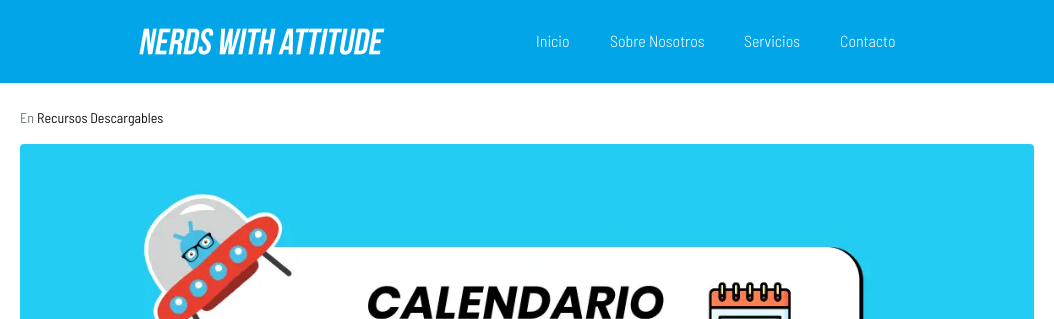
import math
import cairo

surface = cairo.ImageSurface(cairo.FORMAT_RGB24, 1054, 319)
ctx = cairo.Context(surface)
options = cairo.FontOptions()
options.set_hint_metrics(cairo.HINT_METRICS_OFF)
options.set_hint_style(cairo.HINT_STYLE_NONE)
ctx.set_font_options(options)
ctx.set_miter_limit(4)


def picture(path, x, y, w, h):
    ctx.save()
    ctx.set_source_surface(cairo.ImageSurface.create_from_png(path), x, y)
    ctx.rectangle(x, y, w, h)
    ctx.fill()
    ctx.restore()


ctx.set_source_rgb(1, 1, 1)
ctx.paint()
ctx.set_source_rgb(0.004, 0.647, 0.91)
ctx.rectangle(0, 0, 1054, 83)
ctx.fill()
picture("img1.png", 139, 28, 246, 27)
ctx.select_font_face("Barlow Semi Condensed Light")
ctx.set_font_size(16)
ctx.set_source_rgb(1, 1, 1)
ctx.move_to(536, 47)
ctx.show_text("Inicio")
ctx.move_to(610, 47)
ctx.show_text("Sobre Nosotros")
ctx.move_to(744, 47)
ctx.show_text("Servicios")
ctx.move_to(840, 47)
ctx.show_text("Contacto")
ctx.select_font_face("Barlow Semi Condensed")
ctx.set_font_size(14)
ctx.set_source_rgb(0.424, 0.459, 0.49)
ctx.move_to(20, 123)
ctx.show_text("En")
ctx.set_source_rgb(0.086, 0.082, 0.067)
ctx.move_to(37, 123)
ctx.show_text("Recursos Descargables")
picture("img2.png", 20, 144, 1014, 175)
surface.write_to_png("page.png")
